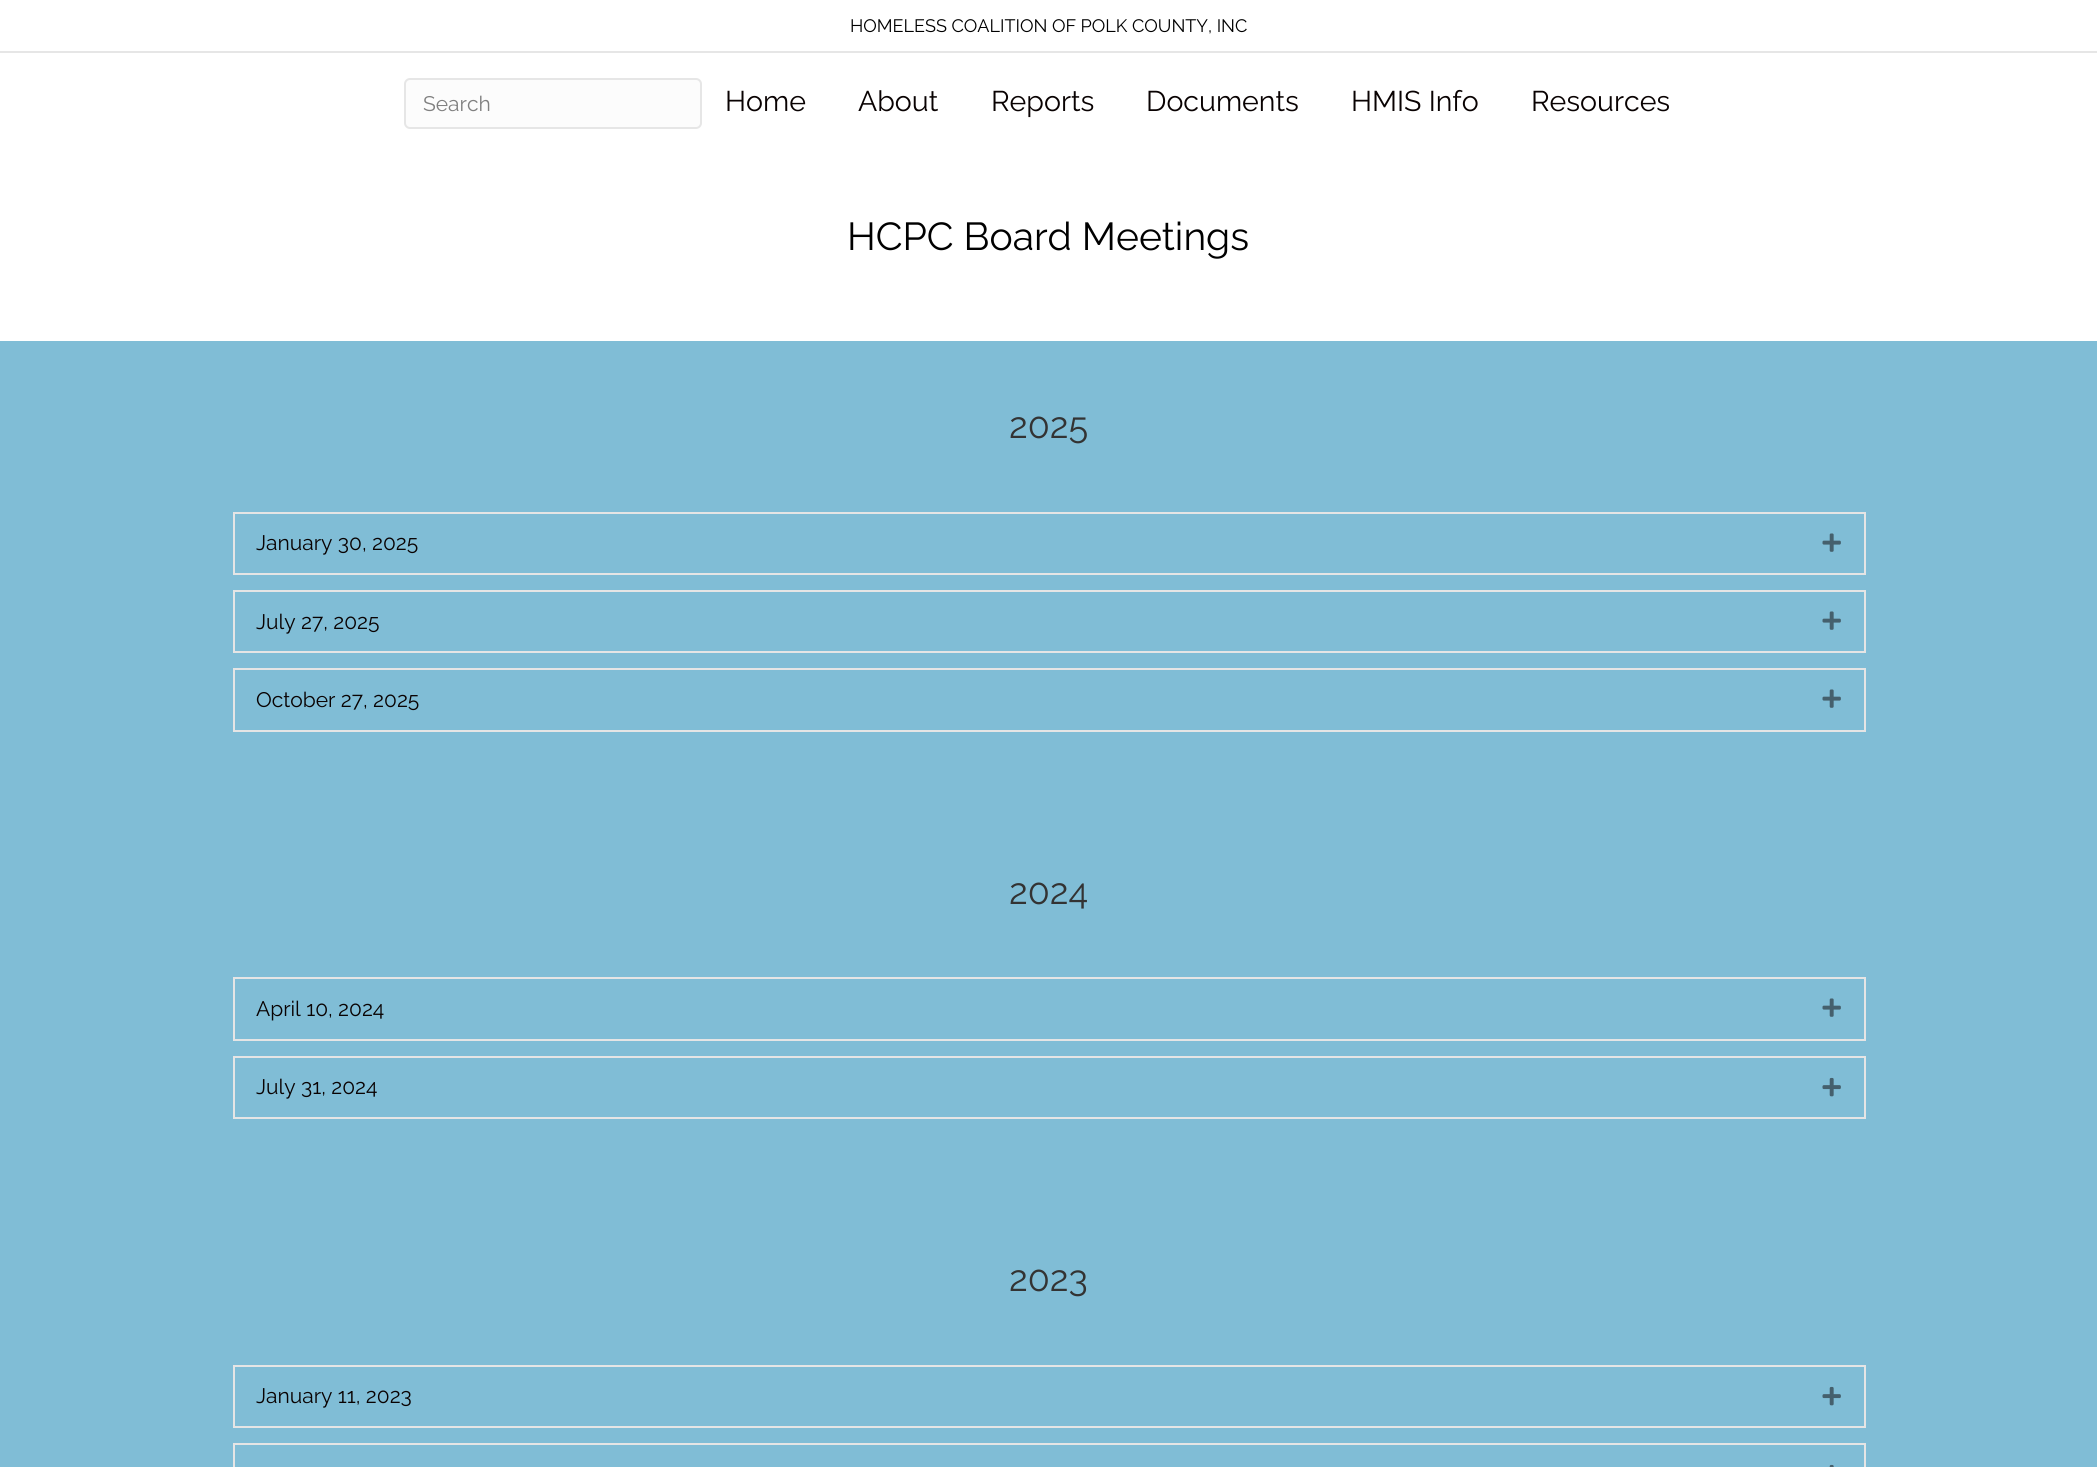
import math
import cairo

surface = cairo.ImageSurface(cairo.FORMAT_RGB24, 2097, 1467)
ctx = cairo.Context(surface)
options = cairo.FontOptions()
options.set_hint_metrics(cairo.HINT_METRICS_OFF)
options.set_hint_style(cairo.HINT_STYLE_NONE)
ctx.set_font_options(options)
ctx.set_miter_limit(4)


def round_rect(x, y, w, h, r):
    ctx.new_sub_path()
    for i, (u, v) in enumerate([(x + w - r, y + h - r), (x + r, y + h - r), (x + r, y + r), (x + w - r, y + r)]):
        ctx.arc(u, v, r, i * math.pi / 2, (i + 1) * math.pi / 2)
    ctx.close_path()


def picture(path, x, y, w, h):
    ctx.save()
    ctx.set_source_surface(cairo.ImageSurface.create_from_png(path), x, y)
    ctx.rectangle(x, y, w, h)
    ctx.fill()
    ctx.restore()


ctx.set_source_rgb(1, 1, 1)
ctx.paint()
ctx.set_source_rgb(0.902, 0.902, 0.902)
ctx.rectangle(0, 51, 2097, 2)
ctx.fill()
ctx.select_font_face("Raleway")
ctx.set_font_size(18)
ctx.set_source_rgb(0, 0, 0)
ctx.move_to(850, 32)
ctx.show_text("HOMELESS COALITION OF POLK COUNTY, INC")
ctx.set_source_rgb(0.988, 0.988, 0.988)
round_rect(405, 79, 296, 49, 5)
ctx.fill_preserve()
ctx.set_source_rgb(0.902, 0.902, 0.902)
ctx.stroke()
ctx.set_font_size(21)
ctx.set_source_rgb(0.502, 0.502, 0.502)
ctx.move_to(423, 111)
ctx.show_text("Search")
ctx.set_font_size(28.5)
ctx.set_source_rgb(0.039, 0.008, 0.008)
ctx.move_to(725, 111)
ctx.show_text("Home")
ctx.move_to(858, 111)
ctx.show_text("About")
ctx.move_to(991, 111)
ctx.show_text("Reports")
ctx.move_to(1146, 111)
ctx.show_text("Documents")
ctx.move_to(1351, 111)
ctx.show_text("HMIS Info")
ctx.move_to(1531, 111)
ctx.show_text("Resources")
ctx.set_font_size(39)
ctx.set_source_rgb(0, 0, 0)
ctx.move_to(847, 250)
ctx.show_text("HCPC Board Meetings")
ctx.set_source_rgb(0.502, 0.741, 0.839)
ctx.rectangle(0, 341, 2097, 1126)
ctx.fill()
ctx.set_font_size(36)
ctx.set_source_rgb(0.2, 0.2, 0.2)
ctx.move_to(1009, 438)
ctx.show_text("2025")
ctx.rectangle(234, 513, 1631, 61)
ctx.set_source_rgb(0.898, 0.898, 0.898)
ctx.stroke()
ctx.set_font_size(21)
ctx.set_source_rgb(0.039, 0.008, 0.008)
ctx.move_to(256, 550)
ctx.show_text("January 30, 2025")
picture("img1.png", 1822, 533, 19, 19)
ctx.rectangle(234, 591, 1631, 61)
ctx.set_source_rgb(0.898, 0.898, 0.898)
ctx.stroke()
ctx.set_source_rgb(0.039, 0.008, 0.008)
ctx.move_to(256, 629)
ctx.show_text("July 27, 2025")
picture("img1.png", 1822, 611, 19, 19)
ctx.rectangle(234, 669, 1631, 62)
ctx.set_source_rgb(0.898, 0.898, 0.898)
ctx.stroke()
ctx.set_source_rgb(0.039, 0.008, 0.008)
ctx.move_to(256, 707)
ctx.show_text("October 27, 2025")
picture("img1.png", 1822, 689, 19, 19)
ctx.set_font_size(36)
ctx.set_source_rgb(0.2, 0.2, 0.2)
ctx.move_to(1009, 904)
ctx.show_text("2024")
ctx.rectangle(234, 978, 1631, 62)
ctx.set_source_rgb(0.898, 0.898, 0.898)
ctx.stroke()
ctx.set_font_size(21)
ctx.set_source_rgb(0.039, 0.008, 0.008)
ctx.move_to(256, 1016)
ctx.show_text("April 10, 2024")
picture("img1.png", 1822, 998, 19, 19)
ctx.rectangle(234, 1057, 1631, 61)
ctx.set_source_rgb(0.898, 0.898, 0.898)
ctx.stroke()
ctx.set_source_rgb(0.039, 0.008, 0.008)
ctx.move_to(256, 1094)
ctx.show_text("July 31, 2024")
picture("img2.png", 1822, 1077, 19, 20)
ctx.set_font_size(36)
ctx.set_source_rgb(0.2, 0.2, 0.2)
ctx.move_to(1009, 1291)
ctx.show_text("2023")
ctx.rectangle(234, 1366, 1631, 61)
ctx.set_source_rgb(0.898, 0.898, 0.898)
ctx.stroke()
ctx.set_font_size(21)
ctx.set_source_rgb(0.039, 0.008, 0.008)
ctx.move_to(256, 1403)
ctx.show_text("January 11, 2023")
picture("img2.png", 1822, 1386, 19, 20)
ctx.rectangle(234, 1444, 1631, 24)
ctx.set_source_rgb(0.898, 0.898, 0.898)
ctx.stroke()
picture("img3.png", 1829, 1464, 5, 3)
surface.write_to_png("page.png")
